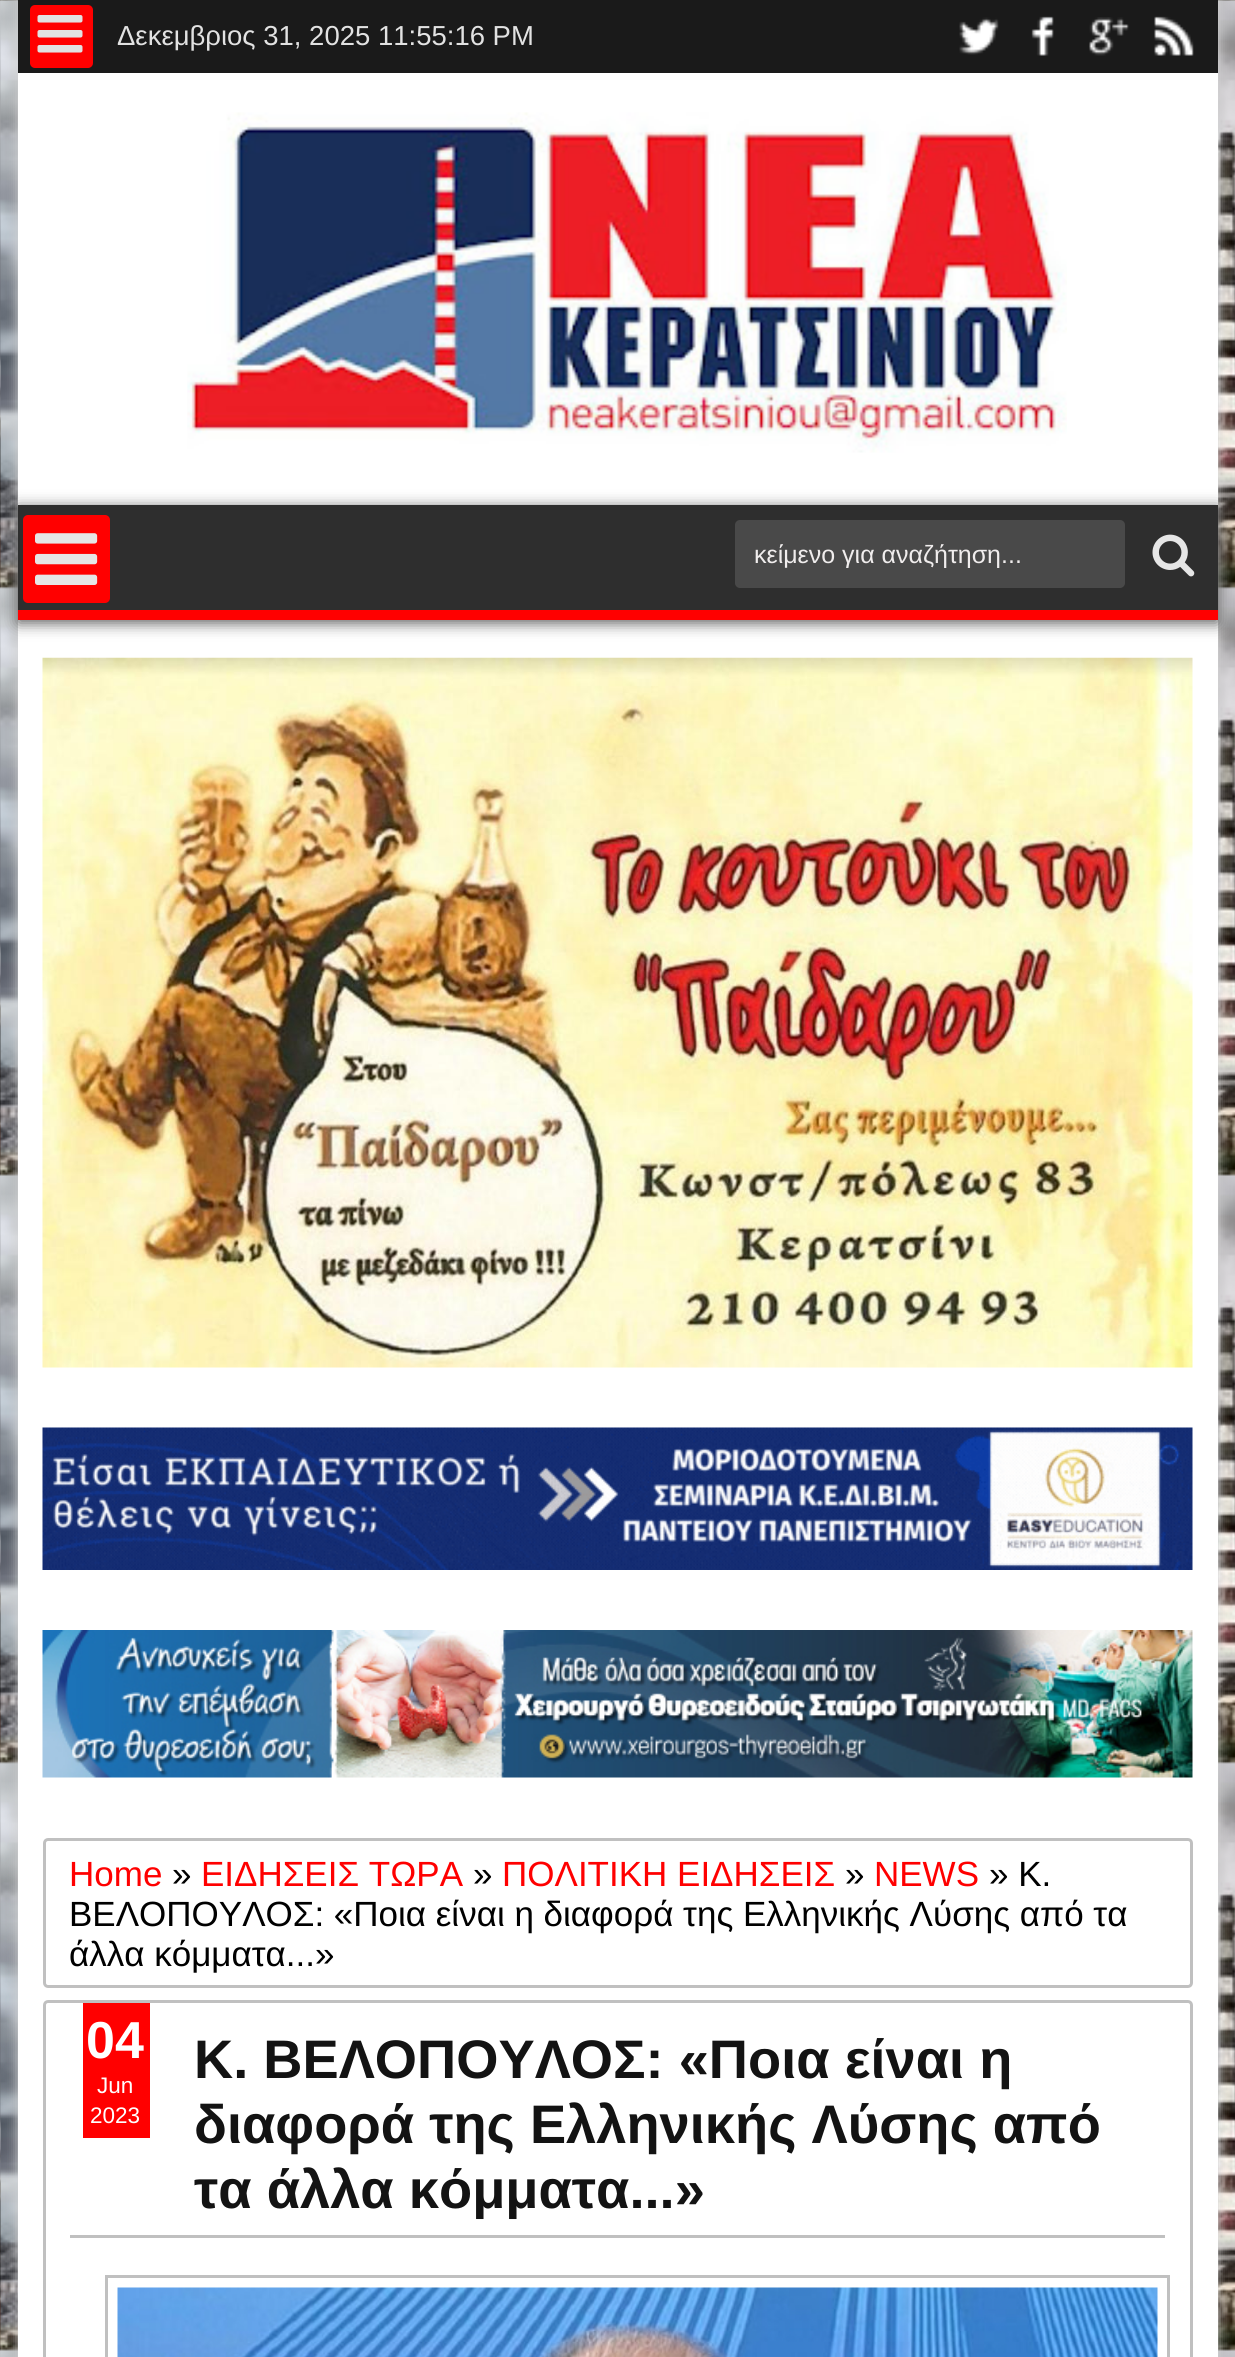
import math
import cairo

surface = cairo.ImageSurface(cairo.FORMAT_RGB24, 1235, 2357)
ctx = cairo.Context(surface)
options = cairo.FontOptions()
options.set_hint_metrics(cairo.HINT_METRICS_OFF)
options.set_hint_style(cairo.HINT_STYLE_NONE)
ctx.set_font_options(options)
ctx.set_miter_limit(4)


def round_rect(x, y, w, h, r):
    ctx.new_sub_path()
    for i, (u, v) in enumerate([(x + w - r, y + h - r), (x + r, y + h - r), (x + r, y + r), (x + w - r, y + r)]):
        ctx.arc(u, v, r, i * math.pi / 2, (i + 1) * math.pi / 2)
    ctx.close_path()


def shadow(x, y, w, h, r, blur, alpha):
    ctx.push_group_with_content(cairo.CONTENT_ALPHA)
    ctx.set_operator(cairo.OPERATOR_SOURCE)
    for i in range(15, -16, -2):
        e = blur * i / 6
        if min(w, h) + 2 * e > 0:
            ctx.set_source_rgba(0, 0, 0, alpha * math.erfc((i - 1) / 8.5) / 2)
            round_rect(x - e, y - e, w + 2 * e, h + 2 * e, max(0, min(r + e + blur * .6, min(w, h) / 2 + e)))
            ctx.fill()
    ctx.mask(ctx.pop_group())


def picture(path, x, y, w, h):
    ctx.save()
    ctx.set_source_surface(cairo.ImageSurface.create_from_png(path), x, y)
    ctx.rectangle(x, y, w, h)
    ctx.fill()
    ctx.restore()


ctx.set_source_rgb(1, 1, 1)
ctx.paint()
picture("img1.png", 0, 0, 1235, 2357)
ctx.set_source_rgb(0.827, 0.827, 0.827)
shadow(18, 0, 1200, 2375, 0, 6, 1)
ctx.set_source_rgb(1, 1, 1)
ctx.rectangle(18, 73, 1200, 2284)
ctx.fill()
ctx.set_source_rgb(0.102, 0.102, 0.102)
ctx.rectangle(18, 0, 1200, 73)
ctx.fill()
ctx.set_source_rgb(1, 0, 0)
round_rect(30, 5, 63, 63, 5)
ctx.fill()
picture("img2.png", 37, 15, 46, 38)
ctx.select_font_face("Liberation Sans")
ctx.set_font_size(27.5)
ctx.set_source_rgb(0.886, 0.886, 0.886)
ctx.move_to(117, 45)
ctx.show_text("Δεκεμβριος 31, 2025 11:55:16 PM")
picture("img3.png", 959, 17, 40, 38)
picture("img4.png", 1031, 16, 23, 40)
picture("img5.png", 1089, 17, 40, 39)
picture("img6.png", 1154, 16, 40, 40)
picture("img7.png", 187, 112, 880, 341)
ctx.set_source_rgb(0.345, 0.345, 0.345)
shadow(18, 508, 1200, 115, 0, 7.5, 1)
ctx.set_source_rgb(0.18, 0.18, 0.18)
ctx.rectangle(18, 505, 1200, 105)
ctx.fill()
ctx.set_source_rgb(1, 0, 0)
ctx.rectangle(18, 610, 1200, 10)
ctx.fill()
round_rect(23, 515, 87, 88, 5)
ctx.fill()
picture("img8.png", 35, 533, 63, 52)
ctx.set_source_rgb(0.286, 0.286, 0.286)
round_rect(735, 520, 390, 68, 5)
ctx.fill()
ctx.save()
ctx.rectangle(755, 540, 350, 28)
ctx.clip()
ctx.set_font_size(25)
ctx.set_source_rgb(0.941, 0.929, 0.929)
ctx.move_to(754, 563)
ctx.show_text("κείμενο για αναζήτηση...")
ctx.restore()
picture("img9.png", 1152, 534, 43, 43)
picture("img10.png", 42, 657, 1151, 711)
picture("img11.png", 42, 1427, 1151, 143)
picture("img12.png", 42, 1630, 1151, 148)
round_rect(44.5, 1839.5, 1147, 147, 3.5)
ctx.set_source_rgb(0.753, 0.753, 0.753)
ctx.set_line_width(3)
ctx.stroke()
ctx.set_font_size(35)
ctx.set_source_rgb(1, 0, 0)
ctx.move_to(69, 1886)
ctx.show_text("Home")
ctx.set_source_rgb(0, 0, 0)
ctx.move_to(172, 1886)
ctx.show_text("»")
ctx.set_source_rgb(1, 0, 0)
ctx.move_to(201, 1886)
ctx.show_text("ΕΙΔΗΣΕΙΣ ΤΩΡΑ")
ctx.set_source_rgb(0, 0, 0)
ctx.move_to(473, 1886)
ctx.show_text("»")
ctx.set_source_rgb(1, 0, 0)
ctx.move_to(502, 1886)
ctx.show_text("ΠΟΛΙΤΙΚΗ ΕΙΔΗΣΕΙΣ")
ctx.set_source_rgb(0, 0, 0)
ctx.move_to(845, 1886)
ctx.show_text("»")
ctx.set_source_rgb(1, 0, 0)
ctx.move_to(874, 1886)
ctx.show_text("NEWS")
ctx.set_source_rgb(0, 0, 0)
ctx.move_to(989, 1886)
ctx.show_text("» Κ.")
ctx.move_to(69, 1926)
ctx.show_text("ΒΕΛΟΠΟΥΛΟΣ: «Ποια είναι η διαφορά της Ελληνικής Λύσης από τα")
ctx.move_to(69, 1966)
ctx.show_text("άλλα κόμματα...»")
round_rect(44.5, 2001.5, 1147, 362, 3.5)
ctx.set_source_rgb(0.753, 0.753, 0.753)
ctx.stroke()
ctx.set_source_rgb(1, 0, 0)
ctx.rectangle(83, 2003, 67, 135)
ctx.fill()
ctx.select_font_face("Liberation Sans", cairo.FONT_SLANT_NORMAL, cairo.FONT_WEIGHT_BOLD)
ctx.set_font_size(52)
ctx.set_source_rgb(1, 1, 1)
ctx.move_to(86, 2058)
ctx.show_text("04")
ctx.select_font_face("Liberation Sans")
ctx.set_font_size(22.5)
ctx.move_to(97, 2093)
ctx.show_text("Jun")
ctx.move_to(90, 2123)
ctx.show_text("2023")
ctx.set_source_rgb(0.753, 0.753, 0.753)
ctx.rectangle(70, 2235, 1095, 3)
ctx.fill()
ctx.select_font_face("Liberation Sans", cairo.FONT_SLANT_NORMAL, cairo.FONT_WEIGHT_BOLD)
ctx.set_font_size(54.25)
ctx.set_source_rgb(0.078, 0.078, 0.078)
ctx.move_to(194, 2078)
ctx.show_text("Κ. ΒΕΛΟΠΟΥΛΟΣ: «Ποια είναι η")
ctx.move_to(194, 2143)
ctx.show_text("διαφορά της Ελληνικής Λύσης από")
ctx.move_to(194, 2208)
ctx.show_text("τα άλλα κόμματα...»")
ctx.rectangle(106.5, 2276.5, 1062, 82)
ctx.set_source_rgb(0.753, 0.753, 0.753)
ctx.stroke()
picture("img13.png", 117, 2287, 1041, 70)
surface.write_to_png("page.png")
